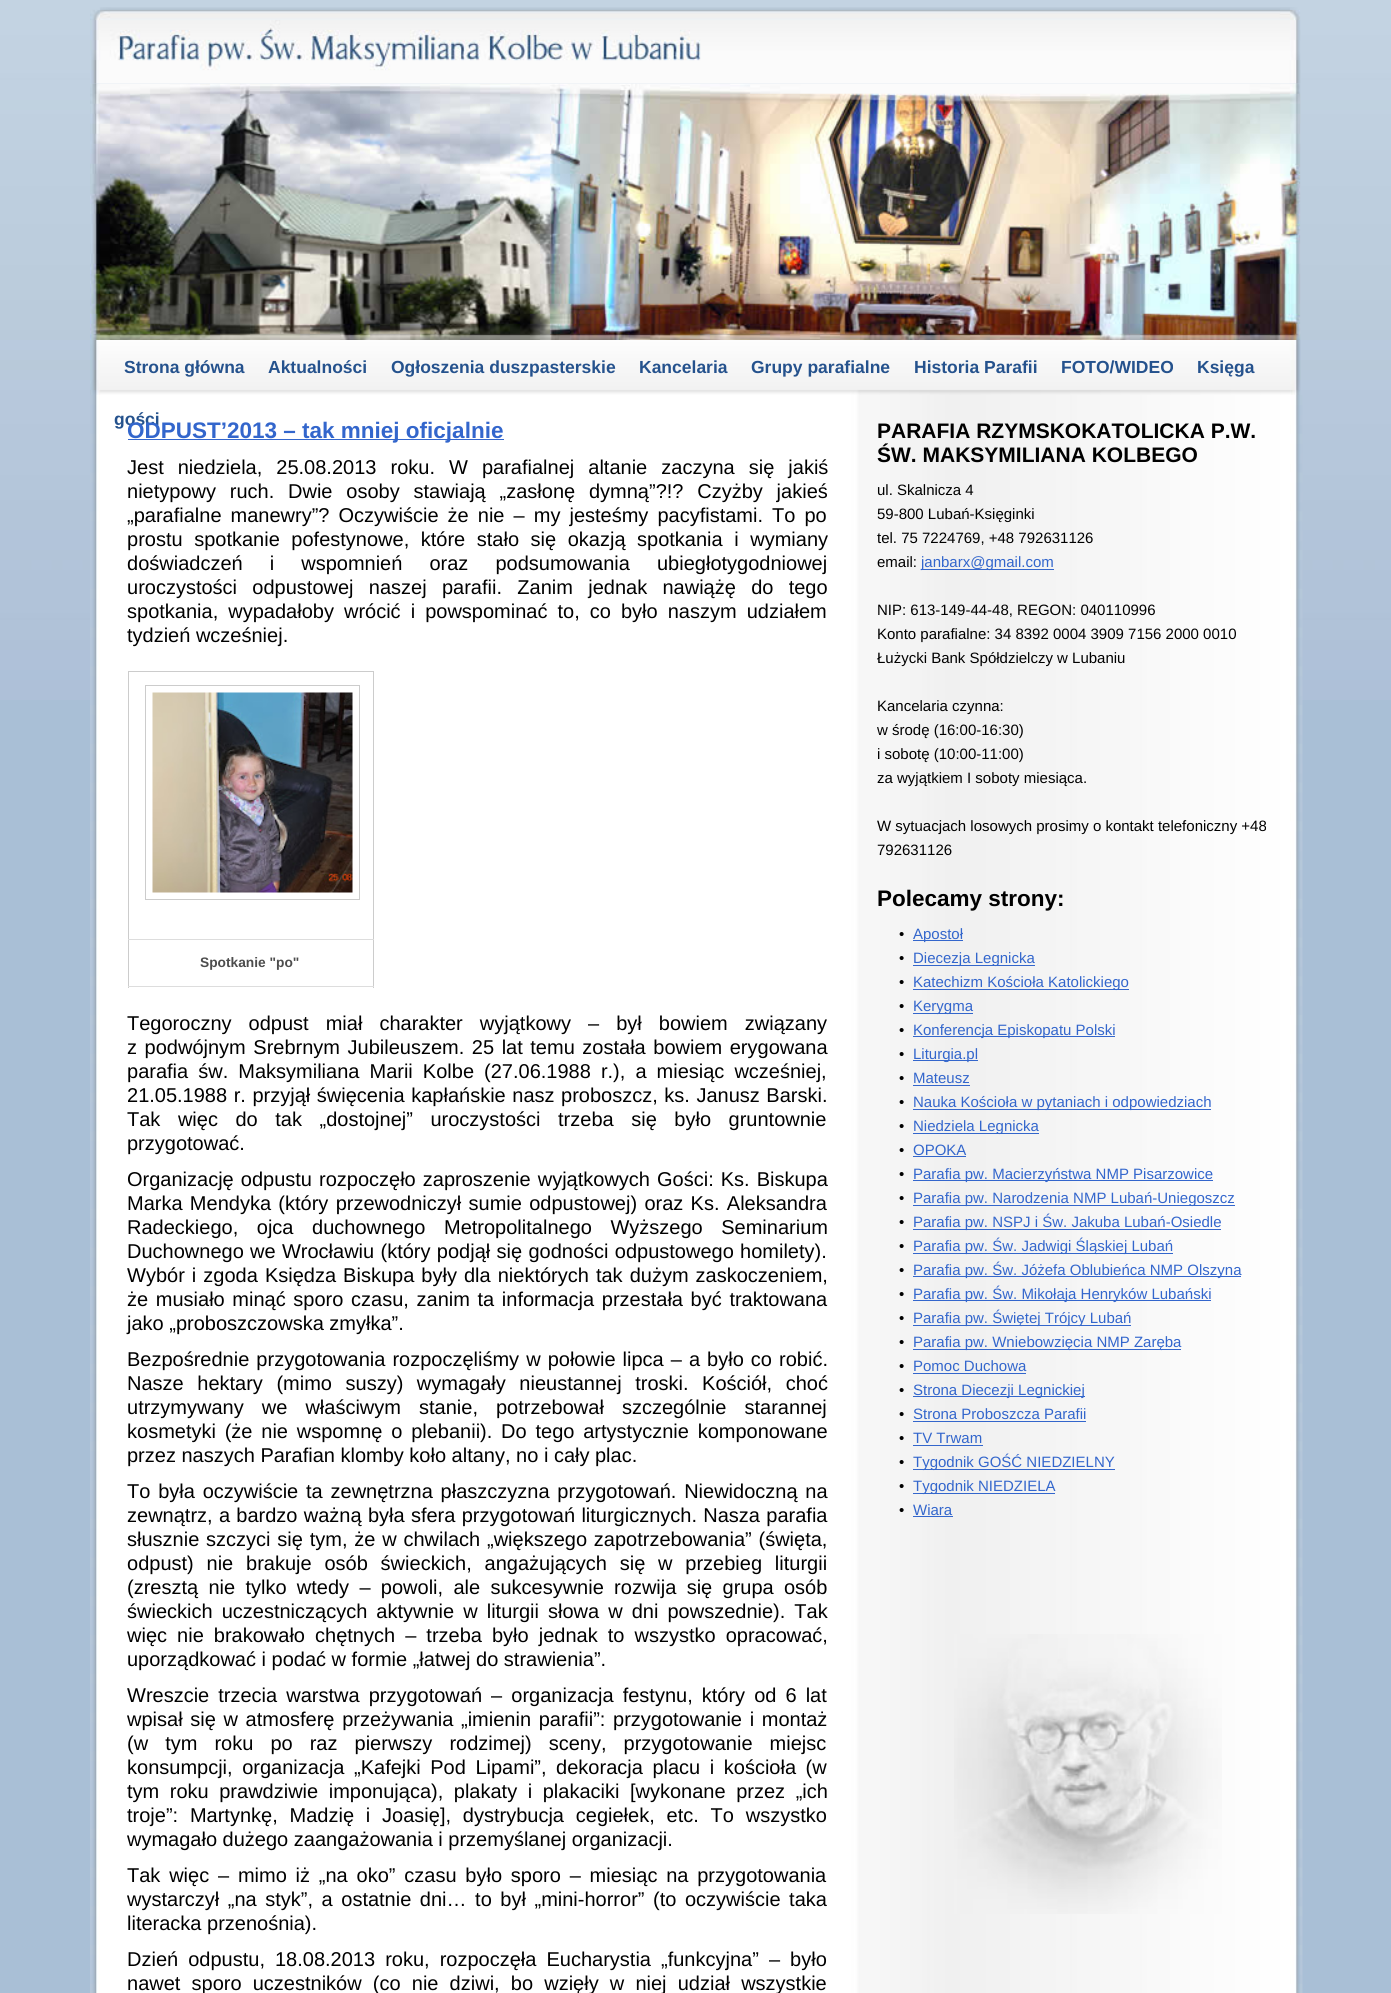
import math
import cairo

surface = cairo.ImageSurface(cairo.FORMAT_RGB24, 1391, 1993)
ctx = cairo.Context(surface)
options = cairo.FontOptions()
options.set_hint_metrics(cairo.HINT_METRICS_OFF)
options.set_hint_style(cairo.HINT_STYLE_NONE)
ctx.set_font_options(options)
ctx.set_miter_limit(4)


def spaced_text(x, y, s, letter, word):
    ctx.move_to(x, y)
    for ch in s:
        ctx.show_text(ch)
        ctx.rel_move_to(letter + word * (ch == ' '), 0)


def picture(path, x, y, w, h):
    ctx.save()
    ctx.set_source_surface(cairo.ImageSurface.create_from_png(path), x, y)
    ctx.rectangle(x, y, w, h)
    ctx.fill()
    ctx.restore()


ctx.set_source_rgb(0.663, 0.749, 0.839)
ctx.paint()
picture("img1.png", 0, 0, 1391, 700)
picture("img2.png", 90, 7, 1211, 77)
picture("img3.png", 90, 83, 1211, 257)
picture("img4.png", 90, 340, 1211, 55)
ctx.select_font_face("Liberation Sans", cairo.FONT_SLANT_NORMAL, cairo.FONT_WEIGHT_BOLD)
ctx.set_font_size(17.5)
ctx.set_source_rgb(0.145, 0.322, 0.553)
ctx.move_to(124, 373)
ctx.show_text("Strona główna")
ctx.move_to(268, 373)
ctx.show_text("Aktualności")
ctx.move_to(391, 373)
ctx.show_text("Ogłoszenia duszpasterskie")
ctx.move_to(639, 373)
ctx.show_text("Kancelaria")
ctx.move_to(751, 373)
ctx.show_text("Grupy parafialne")
ctx.move_to(914, 373)
ctx.show_text("Historia Parafii")
ctx.move_to(1061, 373)
ctx.show_text("FOTO/WIDEO")
ctx.move_to(1197, 373)
ctx.show_text("Księga")
picture("img5.png", 90, 395, 1213, 1598)
ctx.move_to(114, 425)
ctx.show_text("gości")
ctx.set_source_rgb(0.2, 0.4, 0.8)
ctx.rectangle(128, 439, 376, 1)
ctx.fill()
ctx.set_font_size(22.5)
ctx.move_to(127, 438)
ctx.show_text("ODPUST’2013 – tak mniej oficjalnie")
ctx.select_font_face("Liberation Sans")
ctx.set_font_size(20)
ctx.set_source_rgb(0, 0, 0)
spaced_text(127, 474, "Jest niedziela, 25.08.2013 roku. W parafialnej altanie zaczyna się jakiś", 0, 8.5)
spaced_text(127, 498, "nietypowy ruch. Dwie osoby stawiają „zasłonę dymną”?!? Czyżby jakieś", 0, 8.25)
spaced_text(127, 522, "„parafialne manewry”? Oczywiście że nie – my jesteśmy pacyfistami. To po", 0, 3.5)
spaced_text(127, 546, "prostu spotkanie pofestynowe, które stało się okazją spotkania i wymiany", 0, 6)
spaced_text(127, 570, "doświadczeń i wspomnień oraz podsumowania ubiegłotygodniowej", 0, 21.5)
spaced_text(127, 594, "uroczystości odpustowej naszej parafii. Zanim jednak nawiążę do tego", 0, 9.75)
spaced_text(127, 618, "spotkania, wypadałoby wrócić i powspominać to, co było naszym udziałem", 0, 4.5)
ctx.move_to(127, 642)
ctx.show_text("tydzień wcześniej.")
ctx.set_source_rgb(0.8, 0.8, 0.8)
ctx.rectangle(128, 671, 246, 1)
ctx.fill()
ctx.rectangle(128, 671, 1, 317)
ctx.fill()
ctx.rectangle(373, 671, 1, 317)
ctx.fill()
ctx.set_source_rgb(0.867, 0.867, 0.867)
ctx.rectangle(128, 939, 246, 1)
ctx.fill()
ctx.rectangle(145.5, 685.5, 214, 214)
ctx.set_source_rgb(0.8, 0.8, 0.8)
ctx.set_line_width(1)
ctx.stroke()
picture("img6.png", 152, 692, 201, 201)
ctx.set_source_rgb(0.867, 0.867, 0.867)
ctx.rectangle(128, 986, 246, 1)
ctx.fill()
ctx.select_font_face("Liberation Sans", cairo.FONT_SLANT_NORMAL, cairo.FONT_WEIGHT_BOLD)
ctx.set_font_size(13.75)
ctx.set_source_rgb(0.302, 0.302, 0.302)
ctx.move_to(200, 967)
ctx.show_text("Spotkanie \"po\"")
ctx.select_font_face("Liberation Sans")
ctx.set_font_size(20)
ctx.set_source_rgb(0, 0, 0)
spaced_text(127, 1030, "Tegoroczny odpust miał charakter wyjątkowy – był bowiem związany", 0, 11.5)
spaced_text(127, 1054, "z podwójnym Srebrnym Jubileuszem. 25 lat temu została bowiem erygowana", 0, 2)
spaced_text(127, 1078, "parafia św. Maksymiliana Marii Kolbe (27.06.1988 r.), a miesiąc wcześniej,", 0, 4.5)
spaced_text(127, 1102, "21.05.1988 r. przyjął święcenia kapłańskie nasz proboszcz, ks. Janusz Barski.", 0, 1)
spaced_text(127, 1126, "Tak więc do tak „dostojnej” uroczystości trzeba się było gruntownie", 0, 12)
ctx.move_to(127, 1150)
ctx.show_text("przygotować.")
spaced_text(127, 1186, "Organizację odpustu rozpoczęło zaproszenie wyjątkowych Gości: Ks. Biskupa", 0, 1.5)
spaced_text(127, 1210, "Marka Mendyka (który przewodniczył sumie odpustowej) oraz Ks. Aleksandra", 0, 1.75)
spaced_text(127, 1234, "Radeckiego, ojca duchownego Metropolitalnego Wyższego Seminarium", 0, 13)
spaced_text(127, 1258, "Duchownego we Wrocławiu (który podjął się godności odpustowego homilety).", 0, 0.75)
spaced_text(127, 1282, "Wybór i zgoda Księdza Biskupa były dla niektórych tak dużym zaskoczeniem,", 0, 1.5)
spaced_text(127, 1306, "że musiało minąć sporo czasu, zanim ta informacja przestała być traktowana", 0, 2.1)
ctx.move_to(127, 1330)
ctx.show_text("jako „proboszczowska zmyłka”.")
spaced_text(127, 1366, "Bezpośrednie przygotowania rozpoczęliśmy w połowie lipca – a było co robić.", 0, 1.5)
spaced_text(127, 1390, "Nasze hektary (mimo suszy) wymagały nieustannej troski. Kościół, choć", 0, 8)
spaced_text(127, 1414, "utrzymywany we właściwym stanie, potrzebował szczególnie starannej", 0, 12.5)
spaced_text(127, 1438, "kosmetyki (że nie wspomnę o plebanii). Do tego artystycznie komponowane", 0, 3.25)
ctx.move_to(127, 1462)
ctx.show_text("przez naszych Parafian klomby koło altany, no i cały plac.")
spaced_text(127, 1498, "To była oczywiście ta zewnętrzna płaszczyzna przygotowań. Niewidoczną na", 0, 2.25)
spaced_text(127, 1522, "zewnątrz, a bardzo ważną była sfera przygotowań liturgicznych. Nasza parafia", 0, 0.75)
spaced_text(127, 1546, "słusznie szczyci się tym, że w chwilach „większego zapotrzebowania” (święta,", 0, 1.25)
spaced_text(127, 1570, "odpust) nie brakuje osób świeckich, angażujących się w przebieg liturgii", 0, 7.25)
spaced_text(127, 1594, "(zresztą nie tylko wtedy – powoli, ale sukcesywnie rozwija się grupa osób", 0, 4.75)
spaced_text(127, 1618, "świeckich uczestniczących aktywnie w liturgii słowa w dni powszednie). Tak", 0, 3.5)
spaced_text(127, 1642, "więc nie brakowało chętnych – trzeba było jednak to wszystko opracować,", 0, 4.5)
ctx.move_to(127, 1666)
ctx.show_text("uporządkować i podać w formie „łatwej do strawienia”.")
spaced_text(127, 1702, "Wreszcie trzecia warstwa przygotowań – organizacja festynu, który od 6 lat", 0, 3.5)
spaced_text(127, 1726, "wpisał się w atmosferę przeżywania „imienin parafii”: przygotowanie i montaż", 0, 2.1)
spaced_text(127, 1750, "(w tym roku po raz pierwszy rodzimej) sceny, przygotowanie miejsc", 0, 11.5)
spaced_text(127, 1774, "konsumpcji, organizacja „Kafejki Pod Lipami”, dekoracja placu i kościoła (w", 0, 4)
spaced_text(127, 1798, "tym roku prawdziwie imponująca), plakaty i plakaciki [wykonane przez „ich", 0, 5)
spaced_text(127, 1822, "troje”: Martynkę, Madzię i Joasię], dystrybucja cegiełek, etc. To wszystko", 0, 6.25)
ctx.move_to(127, 1846)
ctx.show_text("wymagało dużego zaangażowania i przemyślanej organizacji.")
spaced_text(127, 1882, "Tak więc – mimo iż „na oko” czasu było sporo – miesiąc na przygotowania", 0, 3.25)
spaced_text(127, 1906, "wystarczył „na styk”, a ostatnie dni… to był „mini-horror” (to oczywiście taka", 0, 3)
ctx.move_to(127, 1930)
ctx.show_text("literacka przenośnia).")
spaced_text(127, 1966, "Dzień odpustu, 18.08.2013 roku, rozpoczęła Eucharystia „funkcyjna” – było", 0, 4.5)
spaced_text(127, 1990, "nawet sporo uczestników (co nie dziwi, bo wzięły w niej udział wszystkie", 0, 5.6)
picture("img7.png", 954, 1634, 268, 280)
ctx.select_font_face("Liberation Sans", cairo.FONT_SLANT_NORMAL, cairo.FONT_WEIGHT_BOLD)
ctx.set_font_size(21)
ctx.move_to(877, 438)
ctx.show_text("PARAFIA RZYMSKOKATOLICKA P.W.")
ctx.move_to(877, 462)
ctx.show_text("ŚW. MAKSYMILIANA KOLBEGO")
ctx.select_font_face("Liberation Sans")
ctx.set_font_size(15)
ctx.move_to(877, 495)
ctx.show_text("ul. Skalnicza 4")
ctx.move_to(877, 519)
ctx.show_text("59-800 Lubań-Księginki")
ctx.move_to(877, 543)
ctx.show_text("tel. 75 7224769, +48 792631126")
ctx.move_to(877, 567)
ctx.show_text("email:")
ctx.set_source_rgb(0.2, 0.4, 0.8)
ctx.rectangle(921, 569, 133, 1)
ctx.fill()
ctx.move_to(921, 567)
ctx.show_text("janbarx@gmail.com")
ctx.set_source_rgb(0, 0, 0)
ctx.move_to(877, 615)
ctx.show_text("NIP: 613-149-44-48, REGON: 040110996")
ctx.move_to(877, 639)
ctx.show_text("Konto parafialne: 34 8392 0004 3909 7156 2000 0010")
ctx.move_to(877, 663)
ctx.show_text("Łużycki Bank Spółdzielczy w Lubaniu")
ctx.move_to(877, 711)
ctx.show_text("Kancelaria czynna:")
ctx.move_to(877, 735)
ctx.show_text("w środę (16:00-16:30)")
ctx.move_to(877, 759)
ctx.show_text("i sobotę (10:00-11:00)")
ctx.move_to(877, 783)
ctx.show_text("za wyjątkiem I soboty miesiąca.")
ctx.move_to(877, 831)
ctx.show_text("W sytuacjach losowych prosimy o kontakt telefoniczny +48")
ctx.move_to(877, 855)
ctx.show_text("792631126")
ctx.select_font_face("Liberation Sans", cairo.FONT_SLANT_NORMAL, cairo.FONT_WEIGHT_BOLD)
ctx.set_font_size(22.5)
ctx.move_to(877, 906)
ctx.show_text("Polecamy strony:")
ctx.select_font_face("Liberation Sans")
ctx.set_font_size(15)
ctx.move_to(899, 939)
ctx.show_text("•")
ctx.set_source_rgb(0.2, 0.4, 0.8)
ctx.rectangle(913, 940, 50, 1)
ctx.fill()
ctx.move_to(913, 939)
ctx.show_text("Apostoł")
ctx.set_source_rgb(0, 0, 0)
ctx.move_to(899, 963)
ctx.show_text("•")
ctx.set_source_rgb(0.2, 0.4, 0.8)
ctx.rectangle(913, 965, 122, 1)
ctx.fill()
ctx.move_to(913, 963)
ctx.show_text("Diecezja Legnicka")
ctx.set_source_rgb(0, 0, 0)
ctx.move_to(899, 987)
ctx.show_text("•")
ctx.set_source_rgb(0.2, 0.4, 0.8)
ctx.rectangle(913, 989, 216, 1)
ctx.fill()
ctx.move_to(913, 987)
ctx.show_text("Katechizm Kościoła Katolickiego")
ctx.set_source_rgb(0, 0, 0)
ctx.move_to(899, 1011)
ctx.show_text("•")
ctx.set_source_rgb(0.2, 0.4, 0.8)
ctx.rectangle(913, 1013, 60, 1)
ctx.fill()
ctx.move_to(913, 1011)
ctx.show_text("Kerygma")
ctx.set_source_rgb(0, 0, 0)
ctx.move_to(899, 1035)
ctx.show_text("•")
ctx.set_source_rgb(0.2, 0.4, 0.8)
ctx.rectangle(913, 1036, 202, 1)
ctx.fill()
ctx.move_to(913, 1035)
ctx.show_text("Konferencja Episkopatu Polski")
ctx.set_source_rgb(0, 0, 0)
ctx.move_to(899, 1059)
ctx.show_text("•")
ctx.set_source_rgb(0.2, 0.4, 0.8)
ctx.rectangle(913, 1060, 65, 1)
ctx.fill()
ctx.move_to(913, 1059)
ctx.show_text("Liturgia.pl")
ctx.set_source_rgb(0, 0, 0)
ctx.move_to(899, 1083)
ctx.show_text("•")
ctx.set_source_rgb(0.2, 0.4, 0.8)
ctx.move_to(913, 1083)
ctx.show_text("Mateusz")
ctx.rectangle(913, 1085, 57, 1)
ctx.fill()
ctx.set_source_rgb(0, 0, 0)
ctx.move_to(899, 1107)
ctx.show_text("•")
ctx.set_source_rgb(0.2, 0.4, 0.8)
ctx.rectangle(913, 1109, 298, 1)
ctx.fill()
ctx.move_to(913, 1107)
ctx.show_text("Nauka Kościoła w pytaniach i odpowiedziach")
ctx.set_source_rgb(0, 0, 0)
ctx.move_to(899, 1131)
ctx.show_text("•")
ctx.set_source_rgb(0.2, 0.4, 0.8)
ctx.rectangle(913, 1133, 126, 1)
ctx.fill()
ctx.move_to(913, 1131)
ctx.show_text("Niedziela Legnicka")
ctx.set_source_rgb(0, 0, 0)
ctx.move_to(899, 1155)
ctx.show_text("•")
ctx.set_source_rgb(0.2, 0.4, 0.8)
ctx.move_to(913, 1155)
ctx.show_text("OPOKA")
ctx.rectangle(913, 1156, 53, 1)
ctx.fill()
ctx.set_source_rgb(0, 0, 0)
ctx.move_to(899, 1179)
ctx.show_text("•")
ctx.set_source_rgb(0.2, 0.4, 0.8)
ctx.rectangle(913, 1180, 300, 1)
ctx.fill()
ctx.move_to(913, 1179)
ctx.show_text("Parafia pw. Macierzyństwa NMP Pisarzowice")
ctx.set_source_rgb(0, 0, 0)
ctx.move_to(899, 1203)
ctx.show_text("•")
ctx.set_source_rgb(0.2, 0.4, 0.8)
ctx.rectangle(913, 1205, 322, 1)
ctx.fill()
ctx.move_to(913, 1203)
ctx.show_text("Parafia pw. Narodzenia NMP Lubań-Uniegoszcz")
ctx.set_source_rgb(0, 0, 0)
ctx.move_to(899, 1227)
ctx.show_text("•")
ctx.set_source_rgb(0.2, 0.4, 0.8)
ctx.rectangle(913, 1229, 308, 1)
ctx.fill()
ctx.move_to(913, 1227)
ctx.show_text("Parafia pw. NSPJ i Św. Jakuba Lubań-Osiedle")
ctx.set_source_rgb(0, 0, 0)
ctx.move_to(899, 1251)
ctx.show_text("•")
ctx.set_source_rgb(0.2, 0.4, 0.8)
ctx.rectangle(913, 1253, 260, 1)
ctx.fill()
ctx.move_to(913, 1251)
ctx.show_text("Parafia pw. Św. Jadwigi Śląskiej Lubań")
ctx.set_source_rgb(0, 0, 0)
ctx.move_to(899, 1275)
ctx.show_text("•")
ctx.set_source_rgb(0.2, 0.4, 0.8)
ctx.rectangle(913, 1276, 328, 1)
ctx.fill()
ctx.move_to(913, 1275)
ctx.show_text("Parafia pw. Św. Jóżefa Oblubieńca NMP Olszyna")
ctx.set_source_rgb(0, 0, 0)
ctx.move_to(899, 1299)
ctx.show_text("•")
ctx.set_source_rgb(0.2, 0.4, 0.8)
ctx.rectangle(913, 1300, 298, 1)
ctx.fill()
ctx.move_to(913, 1299)
ctx.show_text("Parafia pw. Św. Mikołaja Henryków Lubański")
ctx.set_source_rgb(0, 0, 0)
ctx.move_to(899, 1323)
ctx.show_text("•")
ctx.set_source_rgb(0.2, 0.4, 0.8)
ctx.rectangle(913, 1325, 218, 1)
ctx.fill()
ctx.move_to(913, 1323)
ctx.show_text("Parafia pw. Świętej Trójcy Lubań")
ctx.set_source_rgb(0, 0, 0)
ctx.move_to(899, 1347)
ctx.show_text("•")
ctx.set_source_rgb(0.2, 0.4, 0.8)
ctx.rectangle(913, 1349, 268, 1)
ctx.fill()
ctx.move_to(913, 1347)
ctx.show_text("Parafia pw. Wniebowzięcia NMP Zaręba")
ctx.set_source_rgb(0, 0, 0)
ctx.move_to(899, 1371)
ctx.show_text("•")
ctx.set_source_rgb(0.2, 0.4, 0.8)
ctx.move_to(913, 1371)
ctx.show_text("Pomoc Duchowa")
ctx.rectangle(913, 1373, 113, 1)
ctx.fill()
ctx.set_source_rgb(0, 0, 0)
ctx.move_to(899, 1395)
ctx.show_text("•")
ctx.set_source_rgb(0.2, 0.4, 0.8)
ctx.rectangle(913, 1396, 172, 1)
ctx.fill()
ctx.move_to(913, 1395)
ctx.show_text("Strona Diecezji Legnickiej")
ctx.set_source_rgb(0, 0, 0)
ctx.move_to(899, 1419)
ctx.show_text("•")
ctx.set_source_rgb(0.2, 0.4, 0.8)
ctx.move_to(913, 1419)
ctx.show_text("Strona Proboszcza Parafii")
ctx.rectangle(913, 1421, 173, 1)
ctx.fill()
ctx.set_source_rgb(0, 0, 0)
ctx.move_to(899, 1443)
ctx.show_text("•")
ctx.set_source_rgb(0.2, 0.4, 0.8)
ctx.move_to(913, 1443)
ctx.show_text("TV Trwam")
ctx.rectangle(913, 1445, 70, 1)
ctx.fill()
ctx.set_source_rgb(0, 0, 0)
ctx.move_to(899, 1467)
ctx.show_text("•")
ctx.set_source_rgb(0.2, 0.4, 0.8)
ctx.rectangle(913, 1469, 202, 1)
ctx.fill()
ctx.move_to(913, 1467)
ctx.show_text("Tygodnik GOŚĆ NIEDZIELNY")
ctx.set_source_rgb(0, 0, 0)
ctx.move_to(899, 1491)
ctx.show_text("•")
ctx.set_source_rgb(0.2, 0.4, 0.8)
ctx.rectangle(913, 1493, 142, 1)
ctx.fill()
ctx.move_to(913, 1491)
ctx.show_text("Tygodnik NIEDZIELA")
ctx.set_source_rgb(0, 0, 0)
ctx.move_to(899, 1515)
ctx.show_text("•")
ctx.set_source_rgb(0.2, 0.4, 0.8)
ctx.move_to(913, 1515)
ctx.show_text("Wiara")
ctx.rectangle(913, 1516, 40, 1)
ctx.fill()
surface.write_to_png("page.png")
